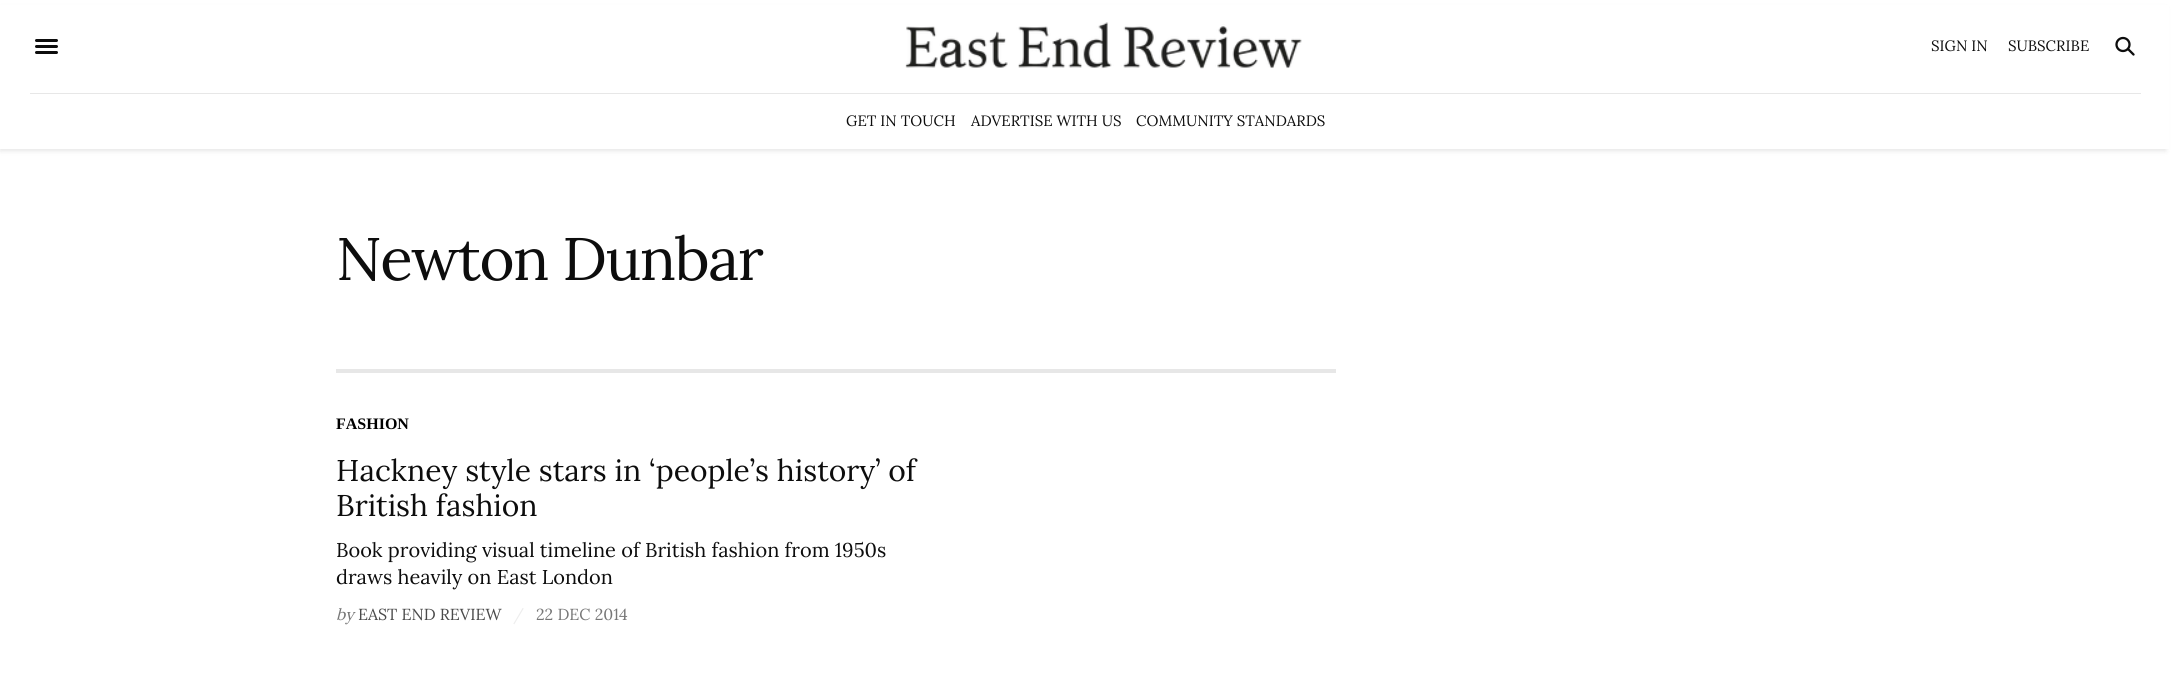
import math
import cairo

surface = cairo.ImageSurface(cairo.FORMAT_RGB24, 2171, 675)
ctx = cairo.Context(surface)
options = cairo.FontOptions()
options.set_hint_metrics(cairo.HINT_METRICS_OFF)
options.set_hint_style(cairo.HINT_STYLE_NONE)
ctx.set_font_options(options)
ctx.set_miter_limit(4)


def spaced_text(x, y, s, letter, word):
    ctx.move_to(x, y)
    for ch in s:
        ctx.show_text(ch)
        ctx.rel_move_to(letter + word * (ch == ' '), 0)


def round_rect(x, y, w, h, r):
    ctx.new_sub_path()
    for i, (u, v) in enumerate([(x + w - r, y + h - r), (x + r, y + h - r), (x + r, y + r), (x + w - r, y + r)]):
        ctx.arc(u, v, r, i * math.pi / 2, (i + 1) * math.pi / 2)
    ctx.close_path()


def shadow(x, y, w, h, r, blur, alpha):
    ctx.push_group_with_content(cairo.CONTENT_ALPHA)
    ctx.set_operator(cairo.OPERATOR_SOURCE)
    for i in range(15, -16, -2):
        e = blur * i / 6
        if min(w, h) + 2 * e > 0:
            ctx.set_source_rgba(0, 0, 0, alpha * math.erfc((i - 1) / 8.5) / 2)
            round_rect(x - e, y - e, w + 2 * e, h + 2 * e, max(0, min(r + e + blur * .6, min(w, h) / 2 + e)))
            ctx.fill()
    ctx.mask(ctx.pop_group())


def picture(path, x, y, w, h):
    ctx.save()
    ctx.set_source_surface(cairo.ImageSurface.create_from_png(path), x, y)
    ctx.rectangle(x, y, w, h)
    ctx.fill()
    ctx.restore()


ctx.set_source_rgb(1, 1, 1)
ctx.paint()
ctx.set_source_rgb(0, 0, 0)
shadow(0, 8, 2166, 143, 0, 2.5, 0.1)
ctx.set_source_rgb(1, 1, 1)
ctx.rectangle(0, 5, 2169, 144)
ctx.fill()
ctx.set_source_rgb(0.051, 0.051, 0.051)
round_rect(35, 39, 23, 3, 1.5)
ctx.fill()
round_rect(35, 45, 23, 3, 1.5)
ctx.fill()
round_rect(35, 51, 23, 3, 1.5)
ctx.fill()
picture("img1.png", 905, 22, 397, 47)
ctx.select_font_face("Lora")
ctx.set_font_size(15)
ctx.move_to(1931, 51)
ctx.show_text("SIGN IN")
ctx.move_to(2008, 51)
ctx.show_text("SUBSCRIBE")
ctx.new_path()
ctx.arc(2123, 44.5, 6.5, 0, 2 * math.pi)
ctx.set_line_width(2.3)
ctx.stroke()
ctx.new_path()
ctx.move_to(2133.5, 54.5)
ctx.line_to(2128, 49)
ctx.set_line_cap(cairo.LINE_CAP_ROUND)
ctx.set_line_join(cairo.LINE_JOIN_ROUND)
ctx.stroke()
ctx.set_source_rgb(0.906, 0.906, 0.906)
ctx.rectangle(30, 93, 2111, 1)
ctx.fill()
ctx.set_source_rgb(0.051, 0.051, 0.051)
ctx.move_to(846, 126)
ctx.show_text("GET IN TOUCH")
ctx.move_to(971, 126)
ctx.show_text("ADVERTISE WITH US")
ctx.move_to(1136, 126)
ctx.show_text("COMMUNITY STANDARDS")
ctx.set_font_size(60)
spaced_text(336, 280, "Newton Dunbar", -1.5, 0)
ctx.set_source_rgb(0.906, 0.906, 0.906)
ctx.rectangle(336, 369, 1000, 4)
ctx.fill()
ctx.select_font_face("Liberation Serif", cairo.FONT_SLANT_NORMAL, cairo.FONT_WEIGHT_BOLD)
ctx.set_font_size(16)
ctx.set_source_rgb(0, 0, 0)
ctx.move_to(336, 429)
ctx.show_text("FASHION")
ctx.select_font_face("Lora")
ctx.set_font_size(30)
ctx.set_source_rgb(0.051, 0.051, 0.051)
ctx.move_to(336, 481)
ctx.show_text("Hackney style stars in ‘people’s history’ of")
ctx.move_to(336, 516)
ctx.show_text("British fashion")
ctx.set_font_size(20)
ctx.move_to(336, 557)
ctx.show_text("Book providing visual timeline of British fashion from 1950s")
ctx.move_to(336, 584)
ctx.show_text("draws heavily on East London")
ctx.select_font_face("Lora", cairo.FONT_SLANT_ITALIC)
ctx.set_font_size(16)
ctx.set_source_rgb(0.467, 0.467, 0.467)
ctx.move_to(336, 620)
ctx.show_text("by")
ctx.select_font_face("Lora")
ctx.set_source_rgb(0.29, 0.29, 0.29)
ctx.move_to(358, 620)
ctx.show_text("EAST END REVIEW")
ctx.set_source_rgb(0.929, 0.929, 0.929)
ctx.move_to(513, 620)
ctx.show_text("/")
ctx.set_source_rgb(0.467, 0.467, 0.467)
ctx.move_to(536, 620)
ctx.show_text("22 DEC 2014")
surface.write_to_png("page.png")
